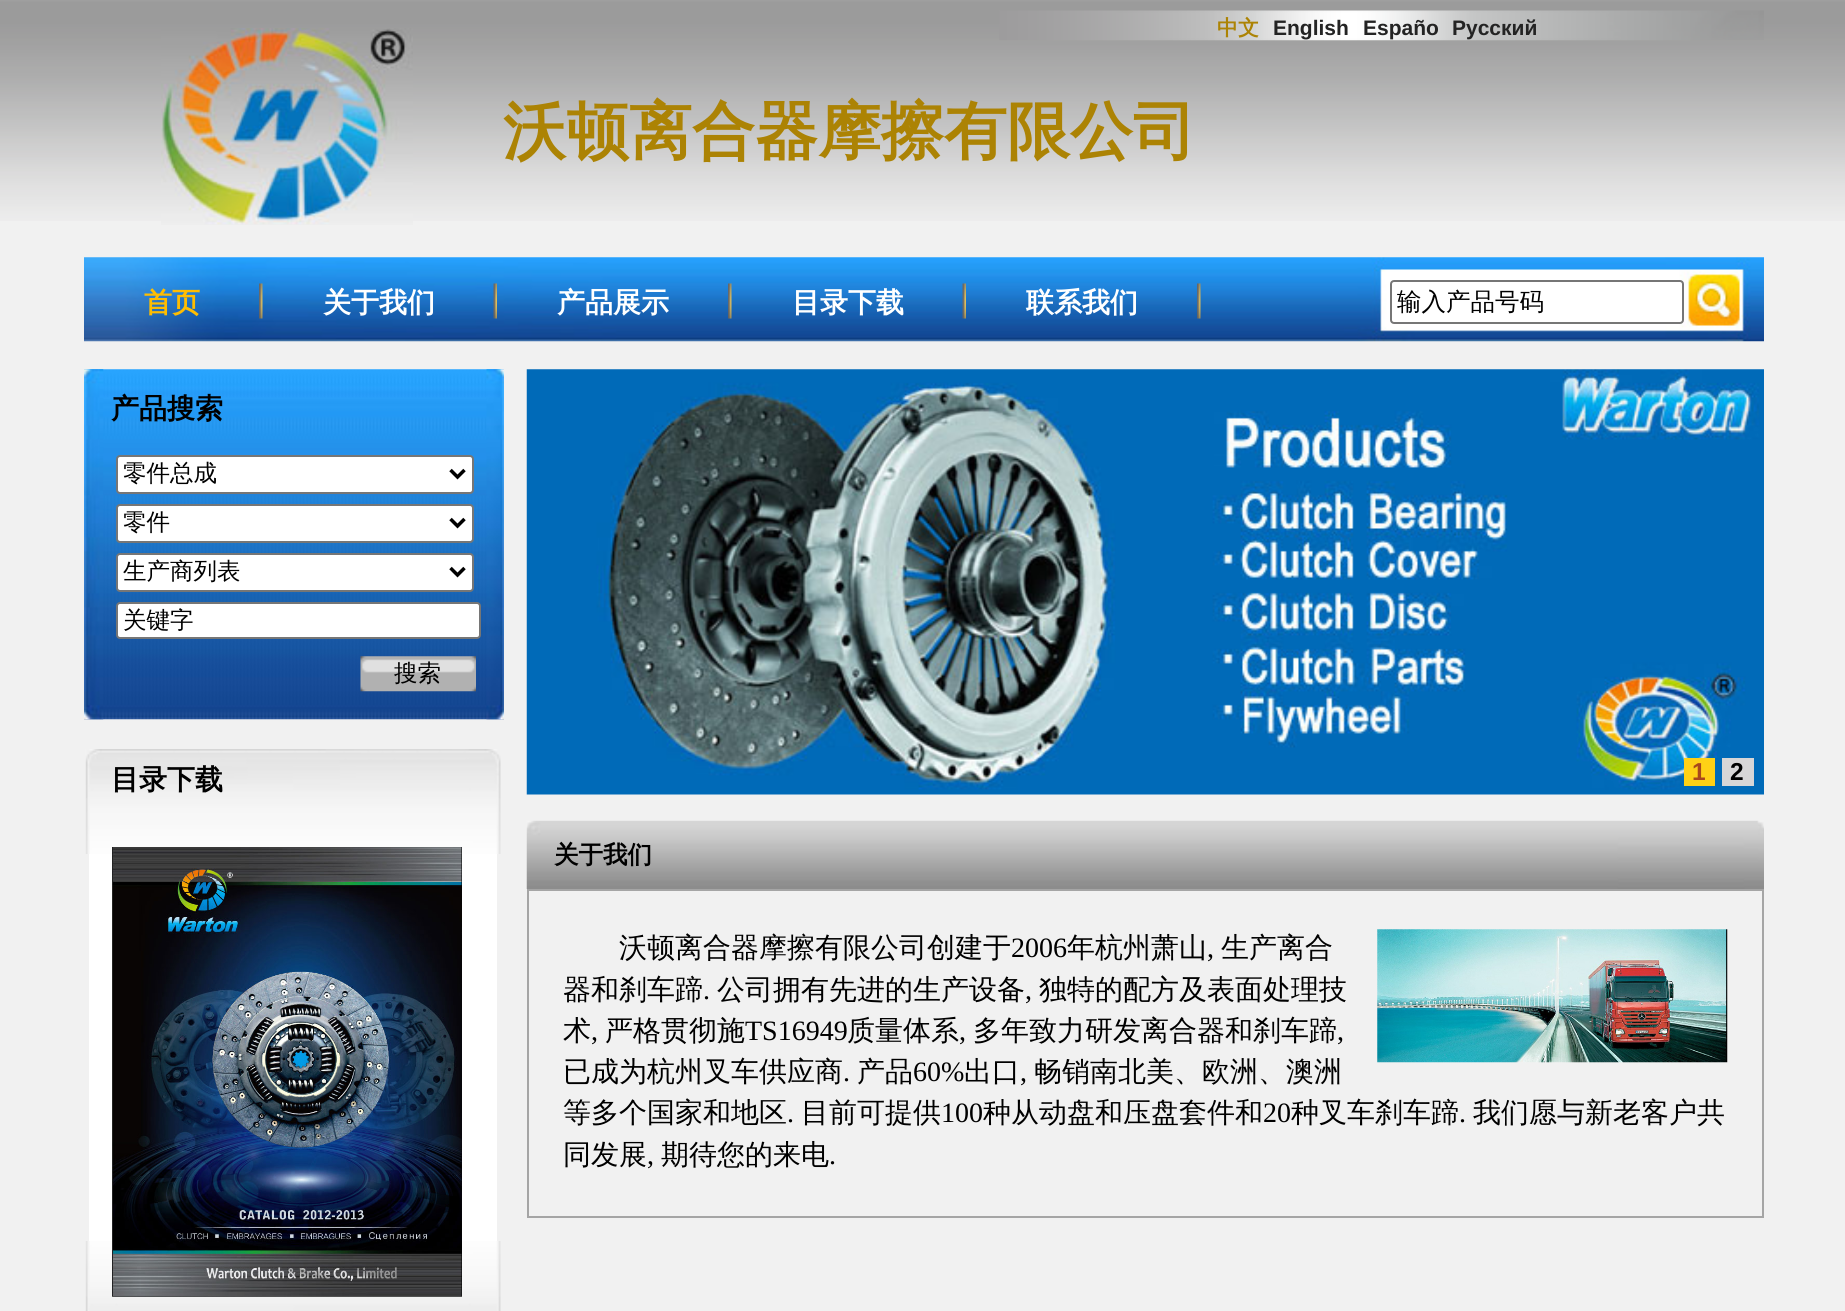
import math
import cairo

surface = cairo.ImageSurface(cairo.FORMAT_RGB24, 1845, 1311)
ctx = cairo.Context(surface)
options = cairo.FontOptions()
options.set_hint_metrics(cairo.HINT_METRICS_OFF)
options.set_hint_style(cairo.HINT_STYLE_NONE)
ctx.set_font_options(options)
ctx.set_miter_limit(4)


def round_rect(x, y, w, h, r):
    ctx.new_sub_path()
    for i, (u, v) in enumerate([(x + w - r, y + h - r), (x + r, y + h - r), (x + r, y + r), (x + w - r, y + r)]):
        ctx.arc(u, v, r, i * math.pi / 2, (i + 1) * math.pi / 2)
    ctx.close_path()


def picture(path, x, y, w, h):
    ctx.save()
    ctx.set_source_surface(cairo.ImageSurface.create_from_png(path), x, y)
    ctx.rectangle(x, y, w, h)
    ctx.fill()
    ctx.restore()


ctx.set_source_rgb(0.945, 0.945, 0.945)
ctx.paint()
picture("img1.png", 0, 0, 1845, 221)
picture("img2.png", 84, 257, 1680, 85)
picture("img3.png", 161, 28, 252, 197)
ctx.select_font_face("WenQuanYi Zen Hei", cairo.FONT_SLANT_NORMAL, cairo.FONT_WEIGHT_BOLD)
ctx.set_font_size(63)
ctx.set_source_rgb(0.675, 0.514, 0.016)
ctx.move_to(503, 153)
ctx.show_text("沃顿离合器摩擦有限公司")
picture("img4.png", 999, 10, 765, 31)
ctx.set_font_size(21)
ctx.move_to(1217, 35)
ctx.show_text("中文")
ctx.select_font_face("Liberation Sans", cairo.FONT_SLANT_NORMAL, cairo.FONT_WEIGHT_BOLD)
ctx.set_source_rgb(0.137, 0.137, 0.137)
ctx.move_to(1273, 35)
ctx.show_text("English")
ctx.move_to(1363, 35)
ctx.show_text("Españo")
ctx.move_to(1452, 35)
ctx.show_text("Русский")
ctx.select_font_face("WenQuanYi Zen Hei", cairo.FONT_SLANT_NORMAL, cairo.FONT_WEIGHT_BOLD)
ctx.set_font_size(28)
ctx.set_source_rgb(1, 0.741, 0)
ctx.move_to(144, 312)
ctx.show_text("首页")
picture("img5.png", 259, 283, 4, 36)
ctx.set_source_rgb(1, 1, 1)
ctx.move_to(323, 312)
ctx.show_text("关于我们")
picture("img6.png", 493, 283, 4, 36)
ctx.move_to(557, 312)
ctx.show_text("产品展示")
picture("img7.png", 728, 283, 4, 36)
ctx.move_to(792, 312)
ctx.show_text("目录下载")
picture("img8.png", 962, 283, 4, 36)
ctx.move_to(1026, 312)
ctx.show_text("联系我们")
picture("img7.png", 1197, 283, 4, 36)
round_rect(1391, 281, 292, 42, 3)
ctx.fill_preserve()
ctx.set_source_rgb(0.463, 0.463, 0.463)
ctx.stroke()
ctx.select_font_face("WenQuanYi Zen Hei Medium")
ctx.set_font_size(24.5)
ctx.set_source_rgb(0, 0, 0)
ctx.move_to(1397, 310)
ctx.show_text("输入产品号码")
picture("img9.png", 84, 369, 420, 351)
picture("img10.png", 84, 369, 20, 351)
picture("img11.png", 486, 369, 18, 351)
ctx.select_font_face("WenQuanYi Zen Hei", cairo.FONT_SLANT_NORMAL, cairo.FONT_WEIGHT_BOLD)
ctx.set_font_size(28)
ctx.move_to(111, 418)
ctx.show_text("产品搜索")
ctx.set_source_rgb(1, 1, 1)
round_rect(117, 456, 356, 37, 3)
ctx.fill_preserve()
ctx.set_source_rgb(0.463, 0.463, 0.463)
ctx.stroke()
ctx.new_path()
ctx.move_to(450.5, 470)
ctx.line_to(457.5, 477)
ctx.line_to(464.5, 470)
ctx.set_source_rgb(0, 0, 0)
ctx.set_line_width(3.5)
ctx.stroke()
ctx.select_font_face("WenQuanYi Zen Hei Medium")
ctx.set_font_size(23.5)
ctx.move_to(123, 481)
ctx.show_text("零件总成")
ctx.set_source_rgb(1, 1, 1)
round_rect(117, 505, 356, 37, 3)
ctx.fill_preserve()
ctx.set_source_rgb(0.463, 0.463, 0.463)
ctx.set_line_width(2)
ctx.stroke()
ctx.new_path()
ctx.move_to(450.5, 519)
ctx.line_to(457.5, 526)
ctx.line_to(464.5, 519)
ctx.set_source_rgb(0, 0, 0)
ctx.set_line_width(3.5)
ctx.stroke()
ctx.move_to(123, 530)
ctx.show_text("零件")
ctx.set_source_rgb(1, 1, 1)
round_rect(117, 554, 356, 37, 3)
ctx.fill_preserve()
ctx.set_source_rgb(0.463, 0.463, 0.463)
ctx.set_line_width(2)
ctx.stroke()
ctx.new_path()
ctx.move_to(450.5, 568)
ctx.line_to(457.5, 575)
ctx.line_to(464.5, 568)
ctx.set_source_rgb(0, 0, 0)
ctx.set_line_width(3.5)
ctx.stroke()
ctx.move_to(123, 579)
ctx.show_text("生产商列表")
ctx.set_source_rgb(1, 1, 1)
round_rect(117, 603, 363, 35, 3)
ctx.fill_preserve()
ctx.set_source_rgb(0.463, 0.463, 0.463)
ctx.set_line_width(2)
ctx.stroke()
ctx.set_source_rgb(0, 0, 0)
ctx.move_to(123, 628)
ctx.show_text("关键字")
picture("img12.png", 360, 656, 116, 36)
ctx.move_to(394, 681)
ctx.show_text("搜索")
ctx.set_source_rgb(1, 1, 1)
ctx.rectangle(89, 854, 408, 387)
ctx.fill()
picture("img13.png", 85, 749, 416, 105)
picture("img14.png", 85, 1241, 416, 70)
ctx.select_font_face("WenQuanYi Zen Hei", cairo.FONT_SLANT_NORMAL, cairo.FONT_WEIGHT_BOLD)
ctx.set_font_size(28)
ctx.set_source_rgb(0, 0, 0)
ctx.move_to(111, 789)
ctx.show_text("目录下载")
picture("img15.png", 112, 847, 350, 450)
picture("img16.png", 526, 369, 1238, 426)
ctx.set_source_rgb(1, 0.82, 0.086)
ctx.rectangle(1684, 758, 31, 28)
ctx.fill()
ctx.select_font_face("Liberation Sans", cairo.FONT_SLANT_NORMAL, cairo.FONT_WEIGHT_BOLD)
ctx.set_font_size(24.5)
ctx.set_source_rgb(0.659, 0.278, 0.11)
ctx.move_to(1692, 780)
ctx.show_text("1")
ctx.set_source_rgb(0.843, 0.839, 0.843)
ctx.rectangle(1722, 758, 32, 28)
ctx.fill()
ctx.set_source_rgb(0, 0, 0)
ctx.move_to(1730, 780)
ctx.show_text("2")
picture("img17.png", 526, 820, 1238, 69)
ctx.select_font_face("WenQuanYi Zen Hei", cairo.FONT_SLANT_NORMAL, cairo.FONT_WEIGHT_BOLD)
ctx.move_to(554, 863)
ctx.show_text("关于我们")
ctx.rectangle(528, 890, 1235, 327)
ctx.set_source_rgb(0.647, 0.647, 0.647)
ctx.stroke()
ctx.select_font_face("WenQuanYi Zen Hei Medium")
ctx.set_font_size(28)
ctx.set_source_rgb(0, 0, 0)
ctx.move_to(619, 957)
ctx.show_text("沃顿离合器摩擦有限公司创建于")
ctx.select_font_face("Liberation Serif")
ctx.move_to(1011, 957)
ctx.show_text("2006")
ctx.select_font_face("WenQuanYi Zen Hei Medium")
ctx.move_to(1067, 957)
ctx.show_text("年杭州萧山")
ctx.select_font_face("Liberation Serif")
ctx.move_to(1207, 957)
ctx.show_text(",")
ctx.select_font_face("WenQuanYi Zen Hei Medium")
ctx.move_to(1221, 957)
ctx.show_text("生产离合")
picture("img18.png", 1377, 929, 351, 134)
ctx.move_to(563, 999)
ctx.show_text("器和刹车蹄")
ctx.select_font_face("Liberation Serif")
ctx.move_to(703, 999)
ctx.show_text(".")
ctx.select_font_face("WenQuanYi Zen Hei Medium")
ctx.move_to(717, 999)
ctx.show_text("公司拥有先进的生产设备")
ctx.select_font_face("Liberation Serif")
ctx.move_to(1025, 999)
ctx.show_text(",")
ctx.select_font_face("WenQuanYi Zen Hei Medium")
ctx.move_to(1039, 999)
ctx.show_text("独特的配方及表面处理技")
ctx.move_to(563, 1040)
ctx.show_text("术")
ctx.select_font_face("Liberation Serif")
ctx.move_to(591, 1040)
ctx.show_text(",")
ctx.select_font_face("WenQuanYi Zen Hei Medium")
ctx.move_to(605, 1040)
ctx.show_text("严格贯彻施")
ctx.select_font_face("Liberation Serif")
ctx.move_to(745, 1040)
ctx.show_text("TS16949")
ctx.select_font_face("WenQuanYi Zen Hei Medium")
ctx.move_to(847, 1040)
ctx.show_text("质量体系")
ctx.select_font_face("Liberation Serif")
ctx.move_to(959, 1040)
ctx.show_text(",")
ctx.select_font_face("WenQuanYi Zen Hei Medium")
ctx.move_to(973, 1040)
ctx.show_text("多年致力研发离合器和刹车蹄")
ctx.select_font_face("Liberation Serif")
ctx.move_to(1337, 1040)
ctx.show_text(",")
ctx.select_font_face("WenQuanYi Zen Hei Medium")
ctx.move_to(563, 1081)
ctx.show_text("已成为杭州叉车供应商")
ctx.select_font_face("Liberation Serif")
ctx.move_to(843, 1081)
ctx.show_text(".")
ctx.select_font_face("WenQuanYi Zen Hei Medium")
ctx.move_to(857, 1081)
ctx.show_text("产品")
ctx.select_font_face("Liberation Serif")
ctx.move_to(913, 1081)
ctx.show_text("60%")
ctx.select_font_face("WenQuanYi Zen Hei Medium")
ctx.move_to(964, 1081)
ctx.show_text("出口")
ctx.select_font_face("Liberation Serif")
ctx.move_to(1020, 1081)
ctx.show_text(",")
ctx.select_font_face("WenQuanYi Zen Hei Medium")
ctx.move_to(1034, 1081)
ctx.show_text("畅销南北美、欧洲、澳洲")
ctx.move_to(563, 1122)
ctx.show_text("等多个国家和地区")
ctx.select_font_face("Liberation Serif")
ctx.move_to(787, 1122)
ctx.show_text(".")
ctx.select_font_face("WenQuanYi Zen Hei Medium")
ctx.move_to(801, 1122)
ctx.show_text("目前可提供")
ctx.select_font_face("Liberation Serif")
ctx.move_to(941, 1122)
ctx.show_text("100")
ctx.select_font_face("WenQuanYi Zen Hei Medium")
ctx.move_to(983, 1122)
ctx.show_text("种从动盘和压盘套件和")
ctx.select_font_face("Liberation Serif")
ctx.move_to(1263, 1122)
ctx.show_text("20")
ctx.select_font_face("WenQuanYi Zen Hei Medium")
ctx.move_to(1291, 1122)
ctx.show_text("种叉车刹车蹄")
ctx.select_font_face("Liberation Serif")
ctx.move_to(1459, 1122)
ctx.show_text(".")
ctx.select_font_face("WenQuanYi Zen Hei Medium")
ctx.move_to(1473, 1122)
ctx.show_text("我们愿与新老客户共")
ctx.move_to(563, 1164)
ctx.show_text("同发展")
ctx.select_font_face("Liberation Serif")
ctx.move_to(647, 1164)
ctx.show_text(",")
ctx.select_font_face("WenQuanYi Zen Hei Medium")
ctx.move_to(661, 1164)
ctx.show_text("期待您的来电")
ctx.select_font_face("Liberation Serif")
ctx.move_to(829, 1164)
ctx.show_text(".")
surface.write_to_png("page.png")
